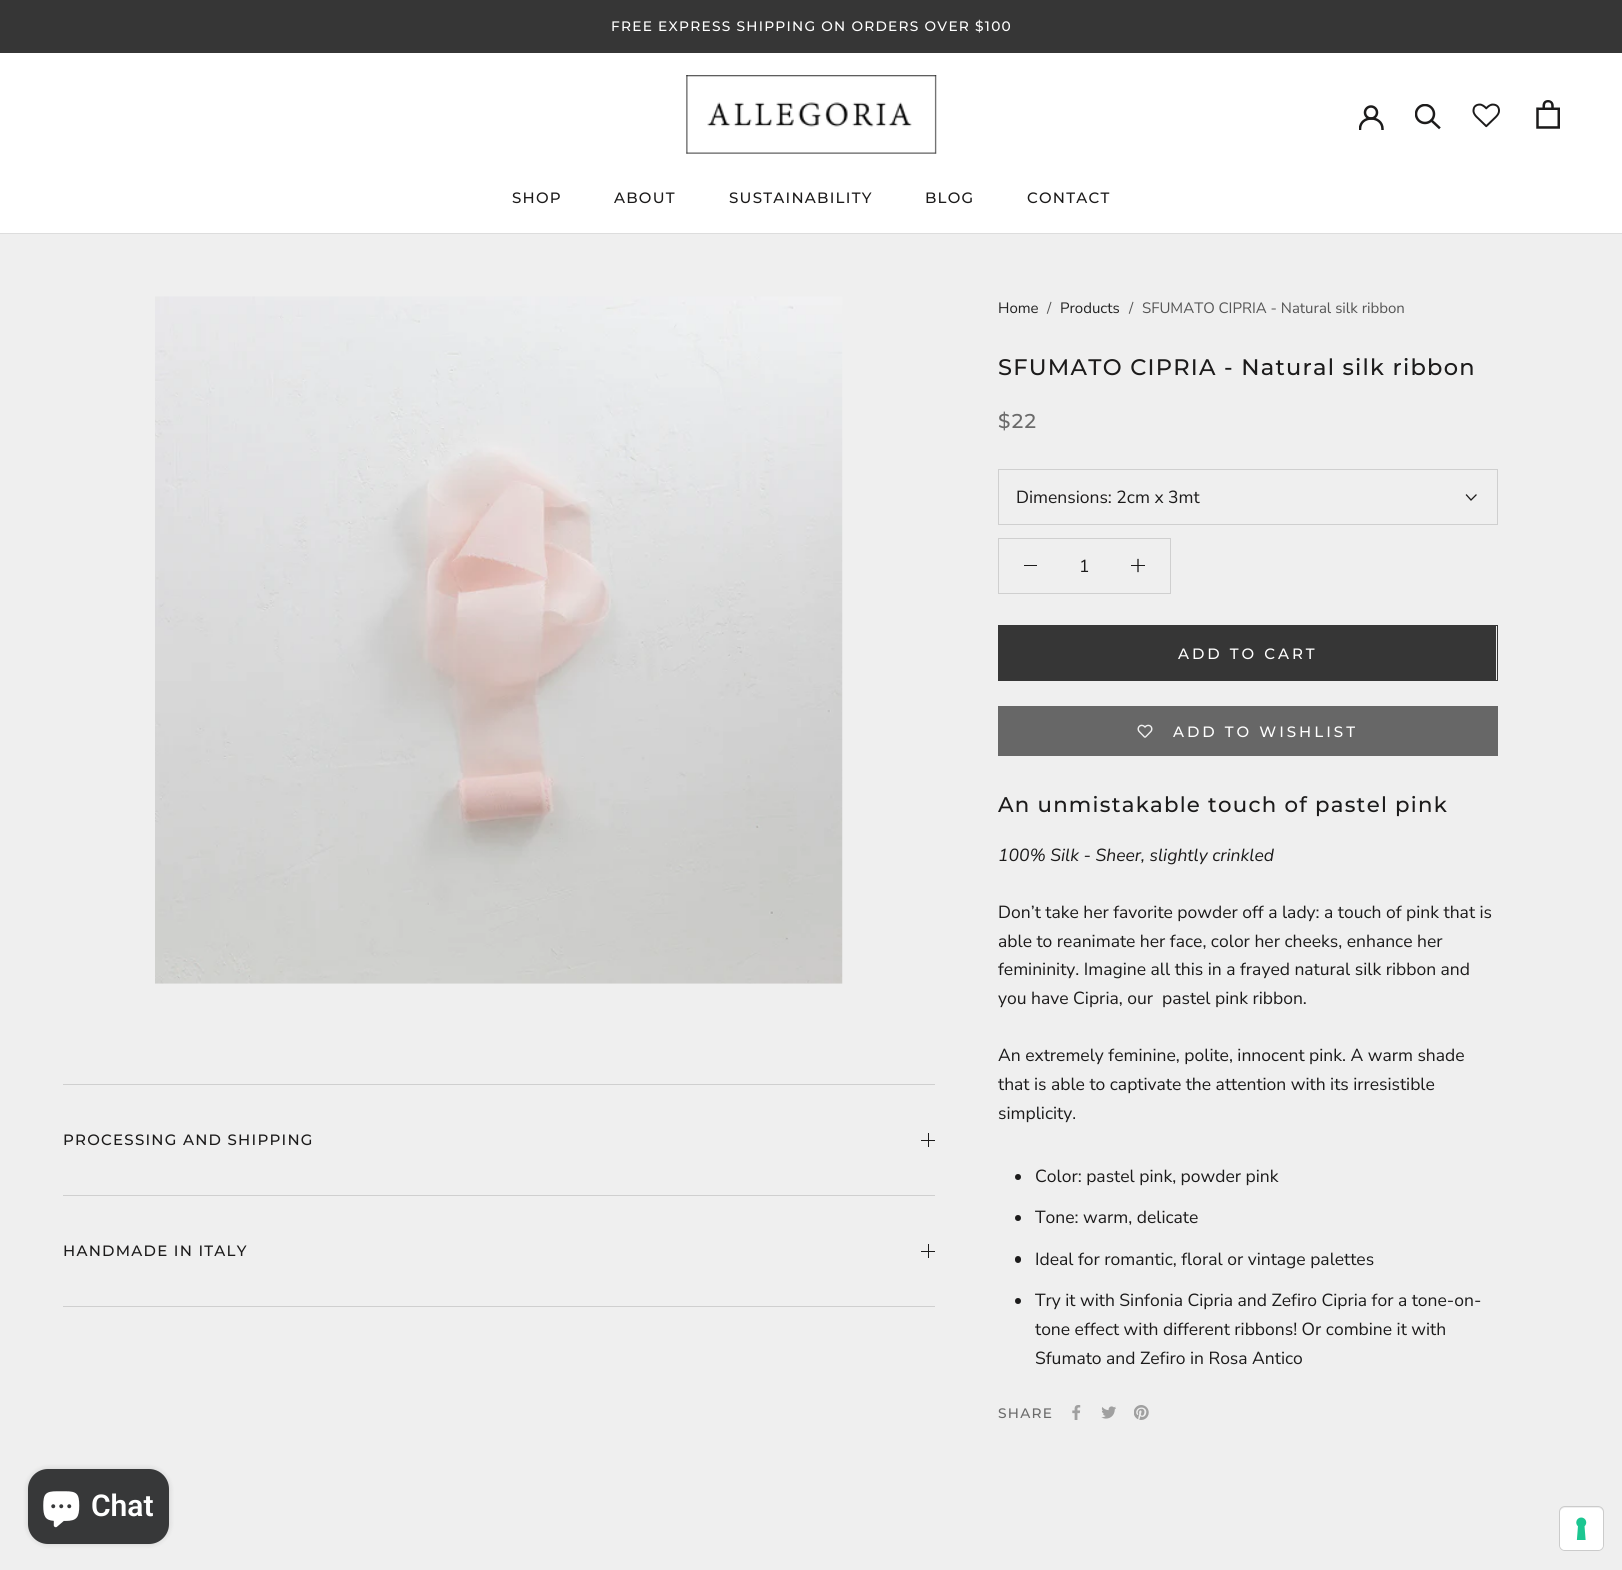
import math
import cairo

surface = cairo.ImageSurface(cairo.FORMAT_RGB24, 1622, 1570)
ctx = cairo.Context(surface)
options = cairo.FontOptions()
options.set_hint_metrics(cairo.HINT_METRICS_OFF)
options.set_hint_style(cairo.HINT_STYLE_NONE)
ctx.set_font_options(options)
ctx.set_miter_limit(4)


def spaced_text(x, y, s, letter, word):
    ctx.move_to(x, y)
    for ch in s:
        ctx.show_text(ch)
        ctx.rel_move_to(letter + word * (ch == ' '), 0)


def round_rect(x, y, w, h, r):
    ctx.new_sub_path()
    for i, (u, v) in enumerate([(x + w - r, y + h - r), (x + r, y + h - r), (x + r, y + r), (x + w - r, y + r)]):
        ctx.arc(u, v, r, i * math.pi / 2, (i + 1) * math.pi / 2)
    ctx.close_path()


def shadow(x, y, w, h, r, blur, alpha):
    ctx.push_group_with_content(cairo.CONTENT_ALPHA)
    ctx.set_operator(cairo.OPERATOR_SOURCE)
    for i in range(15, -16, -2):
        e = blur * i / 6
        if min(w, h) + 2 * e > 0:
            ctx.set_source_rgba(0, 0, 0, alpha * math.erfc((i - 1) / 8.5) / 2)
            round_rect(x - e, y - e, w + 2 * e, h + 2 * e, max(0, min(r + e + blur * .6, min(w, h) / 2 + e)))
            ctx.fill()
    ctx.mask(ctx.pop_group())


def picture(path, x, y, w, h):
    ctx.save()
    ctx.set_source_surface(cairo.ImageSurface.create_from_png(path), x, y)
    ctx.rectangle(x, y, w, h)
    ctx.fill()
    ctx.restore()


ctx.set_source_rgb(0.937, 0.937, 0.937)
ctx.paint()
ctx.set_source_rgb(0.212, 0.212, 0.212)
ctx.rectangle(0, 0, 1622, 53)
ctx.fill()
ctx.select_font_face("Montserrat Medium")
ctx.set_font_size(13.75)
ctx.set_source_rgb(1, 1, 1)
spaced_text(611, 31, "FREE EXPRESS SHIPPING ON ORDERS OVER $100", 1.25, 0)
ctx.rectangle(0, 53, 1622, 180)
ctx.fill()
ctx.set_source_rgb(0.867, 0.867, 0.867)
ctx.rectangle(0, 233, 1622, 1)
ctx.fill()
picture("img1.png", 686, 75, 251, 79)
ctx.save()
ctx.rectangle(1359, 105, 25, 25)
ctx.clip()
ctx.new_path()
ctx.move_to(1360, 129)
ctx.curve_to(1360, 115, 1382.5, 115, 1382.5, 129)
ctx.set_source_rgb(0.11, 0.106, 0.106)
ctx.set_line_width(2.5)
ctx.set_line_cap(cairo.LINE_CAP_SQUARE)
ctx.stroke()
ctx.restore()
ctx.arc(1371, 112.5, 6, 0, 2 * math.pi)
ctx.set_source_rgb(0.11, 0.106, 0.106)
ctx.set_line_width(2.5)
ctx.stroke()
ctx.new_path()
ctx.move_to(1439, 127.5)
ctx.line_to(1431.5, 120.5)
ctx.set_line_cap(cairo.LINE_CAP_SQUARE)
ctx.stroke()
ctx.save()
ctx.rectangle(1415, 104, 26, 26)
ctx.clip()
ctx.arc(1425, 114, 9, 0, 2 * math.pi)
ctx.set_line_cap(cairo.LINE_CAP_BUTT)
ctx.stroke()
ctx.restore()
picture("img2.png", 1472, 103, 28, 25)
picture("img3.png", 1536, 100, 24, 29)
ctx.set_font_size(15)
spaced_text(512, 203, "SHOP", 1.25, 0)
spaced_text(614, 203, "ABOUT", 1.25, 0)
spaced_text(729, 203, "SUSTAINABILITY", 1.25, 0)
spaced_text(925, 203, "BLOG", 1.25, 0)
spaced_text(1027, 203, "CONTACT", 1.25, 0)
picture("img4.png", 155, 296, 688, 688)
ctx.select_font_face("Nunito Sans")
ctx.set_source_rgb(0.133, 0.133, 0.133)
ctx.move_to(998, 313)
ctx.show_text("Home")
ctx.set_source_rgb(0.333, 0.333, 0.333)
ctx.move_to(1047, 313)
ctx.show_text("/")
ctx.set_source_rgb(0.133, 0.133, 0.133)
ctx.move_to(1060, 313)
ctx.show_text("Products")
ctx.set_source_rgb(0.333, 0.333, 0.333)
ctx.move_to(1129, 313)
ctx.show_text("/")
ctx.move_to(1142, 313)
ctx.show_text("SFUMATO CIPRIA - Natural silk ribbon")
ctx.select_font_face("Montserrat Medium")
ctx.set_font_size(22.5)
ctx.set_source_rgb(0.11, 0.106, 0.106)
spaced_text(998, 375, "SFUMATO CIPRIA - Natural silk ribbon", 1.25, 0)
ctx.set_font_size(20)
ctx.set_source_rgb(0.416, 0.416, 0.416)
spaced_text(998, 428, "$22", 1.25, 0)
ctx.rectangle(998.5, 469.5, 499, 55)
ctx.set_source_rgb(0.812, 0.812, 0.812)
ctx.set_line_width(1)
ctx.set_line_cap(cairo.LINE_CAP_BUTT)
ctx.stroke()
ctx.select_font_face("Nunito Sans")
ctx.set_font_size(17.5)
ctx.set_source_rgb(0.11, 0.106, 0.106)
ctx.move_to(1016, 503)
ctx.show_text("Dimensions: 2cm x 3mt")
ctx.new_path()
ctx.move_to(1476, 495)
ctx.line_to(1471, 500)
ctx.line_to(1466.5, 495)
ctx.set_line_width(1.3)
ctx.set_line_cap(cairo.LINE_CAP_SQUARE)
ctx.stroke()
ctx.rectangle(998.5, 538.5, 172, 55)
ctx.set_source_rgb(0.812, 0.812, 0.812)
ctx.set_line_width(1)
ctx.set_line_cap(cairo.LINE_CAP_BUTT)
ctx.stroke()
ctx.set_source_rgb(0.11, 0.106, 0.106)
ctx.rectangle(1024, 565, 13, 1)
ctx.fill()
ctx.move_to(1079, 572)
ctx.show_text("1")
ctx.new_path()
ctx.move_to(1138, 559.5)
ctx.line_to(1138, 571.5)
ctx.set_line_width(1.3)
ctx.set_line_cap(cairo.LINE_CAP_SQUARE)
ctx.stroke()
ctx.rectangle(1131, 565, 14, 1)
ctx.fill()
ctx.rectangle(998.5, 625.5, 499, 55)
ctx.set_source_rgb(0.212, 0.212, 0.212)
ctx.set_line_width(1)
ctx.set_line_cap(cairo.LINE_CAP_BUTT)
ctx.stroke()
ctx.rectangle(999, 626, 497, 54)
ctx.fill()
ctx.select_font_face("Montserrat Medium")
ctx.set_font_size(15)
ctx.set_source_rgb(1, 1, 1)
spaced_text(1178, 659, "ADD TO CART", 3, 0)
ctx.set_source_rgb(0.404, 0.404, 0.404)
ctx.rectangle(998, 706, 500, 50)
ctx.fill()
picture("img5.png", 1137, 724, 16, 14)
ctx.set_source_rgb(1, 1, 1)
spaced_text(1173, 737, "ADD TO WISHLIST", 3, 0)
ctx.set_font_size(21.25)
ctx.set_source_rgb(0.11, 0.106, 0.106)
spaced_text(998, 812, "An unmistakable touch of pastel pink", 1.25, 0)
ctx.select_font_face("Nunito Sans", cairo.FONT_SLANT_ITALIC)
ctx.set_font_size(17.5)
ctx.move_to(998, 861)
ctx.show_text("100% Silk - Sheer, slightly crinkled")
ctx.select_font_face("Nunito Sans")
ctx.move_to(998, 918)
ctx.show_text("Don’t take her favorite powder off a lady: a touch of pink that is")
ctx.move_to(998, 947)
ctx.show_text("able to reanimate her face, color her cheeks, enhance her")
ctx.move_to(998, 975)
ctx.show_text("femininity. Imagine all this in a frayed natural silk ribbon and")
ctx.move_to(998, 1004)
ctx.show_text("you have Cipria, our  pastel pink ribbon.")
ctx.move_to(998, 1061)
ctx.show_text("An extremely feminine, polite, innocent pink. A warm shade")
ctx.move_to(998, 1090)
ctx.show_text("that is able to captivate the attention with its irresistible")
ctx.move_to(998, 1119)
ctx.show_text("simplicity.")
ctx.new_path()
ctx.arc(1018, 1177, 3, 0, 2 * math.pi)
ctx.fill()
ctx.move_to(1035, 1182)
ctx.show_text("Color: pastel pink, powder pink")
ctx.new_path()
ctx.arc(1018, 1218, 3, 0, 2 * math.pi)
ctx.fill()
ctx.move_to(1035, 1223)
ctx.show_text("Tone: warm, delicate")
round_rect(1015, 1256, 6, 7, 3)
ctx.fill()
ctx.move_to(1035, 1265)
ctx.show_text("Ideal for romantic, floral or vintage palettes")
ctx.new_path()
ctx.arc(1018, 1301, 3, 0, 2 * math.pi)
ctx.fill()
ctx.move_to(1035, 1306)
ctx.show_text("Try it with Sinfonia Cipria and Zefiro Cipria for a tone-on-")
ctx.move_to(1035, 1335)
ctx.show_text("tone effect with different ribbons! Or combine it with")
ctx.move_to(1035, 1364)
ctx.show_text("Sfumato and Zefiro in Rosa Antico")
ctx.select_font_face("Montserrat Medium")
ctx.set_font_size(13.75)
ctx.set_source_rgb(0.416, 0.416, 0.416)
spaced_text(998, 1418, "SHARE", 1.25, 0)
picture("img6.png", 1072, 1405, 9, 15)
picture("img7.png", 1101, 1406, 15, 13)
picture("img8.png", 1134, 1405, 15, 15)
ctx.set_source_rgb(0.812, 0.812, 0.812)
ctx.rectangle(63, 1084, 872, 1)
ctx.fill()
ctx.rectangle(63, 1195, 872, 1)
ctx.fill()
ctx.set_font_size(15)
ctx.set_source_rgb(0.11, 0.106, 0.106)
spaced_text(63, 1145, "PROCESSING AND SHIPPING", 1.25, 0)
ctx.rectangle(928, 1133, 1, 14)
ctx.fill()
ctx.rectangle(921, 1140, 14, 1)
ctx.fill()
ctx.set_source_rgb(0.812, 0.812, 0.812)
ctx.rectangle(63, 1306, 872, 1)
ctx.fill()
ctx.set_source_rgb(0.11, 0.106, 0.106)
spaced_text(63, 1256, "HANDMADE IN ITALY", 1.25, 0)
ctx.rectangle(928, 1244, 1, 14)
ctx.fill()
ctx.rectangle(921, 1251, 14, 1)
ctx.fill()
ctx.set_source_rgb(0, 0, 0)
shadow(28, 1469, 141, 75, 20, 3, 0.15)
ctx.set_source_rgb(0.216, 0.22, 0.224)
round_rect(28, 1469, 141, 75, 20)
ctx.fill()
picture("img9.png", 43, 1491, 37, 37)
ctx.select_font_face("Roboto SemiBold")
ctx.set_font_size(30)
ctx.set_source_rgb(1, 1, 1)
ctx.move_to(91, 1516)
ctx.show_text("Chat")
round_rect(1559.5, 1506.5, 44, 44, 5.5)
ctx.set_source_rgb(0.796, 0.796, 0.796)
ctx.stroke()
ctx.set_source_rgb(1, 1, 1)
round_rect(1560, 1508, 43, 42, 5)
ctx.fill()
picture("img10.png", 1576, 1517, 11, 23)
surface.write_to_png("page.png")
